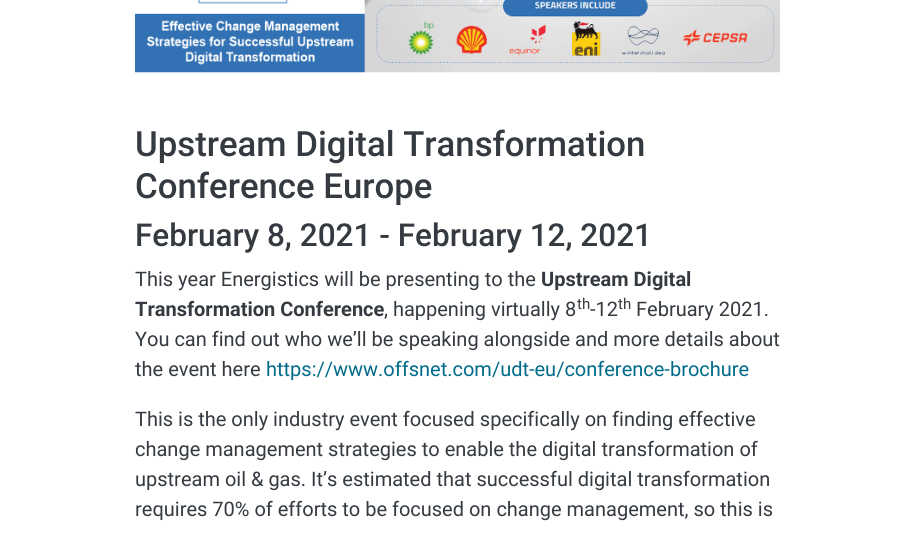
import math
import cairo

surface = cairo.ImageSurface(cairo.FORMAT_RGB24, 915, 533)
ctx = cairo.Context(surface)
options = cairo.FontOptions()
options.set_hint_metrics(cairo.HINT_METRICS_OFF)
options.set_hint_style(cairo.HINT_STYLE_NONE)
ctx.set_font_options(options)
ctx.set_miter_limit(4)


def picture(path, x, y, w, h):
    ctx.save()
    ctx.set_source_surface(cairo.ImageSurface.create_from_png(path), x, y)
    ctx.rectangle(x, y, w, h)
    ctx.fill()
    ctx.restore()


ctx.set_source_rgb(1, 1, 1)
ctx.paint()
picture("img1.png", 135, 0, 645, 73)
ctx.select_font_face("Roboto Medium")
ctx.set_font_size(34.75)
ctx.set_source_rgb(0.204, 0.227, 0.251)
ctx.move_to(135, 156)
ctx.show_text("Upstream Digital Transformation")
ctx.move_to(135, 198)
ctx.show_text("Conference Europe")
ctx.set_font_size(31.5)
ctx.move_to(135, 246)
ctx.show_text("February 8, 2021 - February 12, 2021")
ctx.select_font_face("Roboto")
ctx.set_font_size(20)
ctx.move_to(135, 286)
ctx.show_text("This year Energistics will be presenting to the")
ctx.select_font_face("Roboto", cairo.FONT_SLANT_NORMAL, cairo.FONT_WEIGHT_BOLD)
ctx.move_to(541, 286)
ctx.show_text("Upstream Digital")
ctx.move_to(135, 316)
ctx.show_text("Transformation Conference")
ctx.select_font_face("Roboto")
ctx.move_to(384, 316)
ctx.show_text(", happening virtually 8")
ctx.set_font_size(15)
ctx.move_to(577, 309)
ctx.show_text("th")
ctx.set_font_size(20)
ctx.move_to(590, 316)
ctx.show_text("-12")
ctx.set_font_size(15)
ctx.move_to(618, 309)
ctx.show_text("th")
ctx.set_font_size(20)
ctx.move_to(636, 316)
ctx.show_text("February 2021.")
ctx.move_to(135, 346)
ctx.show_text("You can find out who we’ll be speaking alongside and more details about")
ctx.move_to(135, 376)
ctx.show_text("the event here")
ctx.set_source_rgb(0, 0.42, 0.541)
ctx.move_to(266, 376)
ctx.show_text("https://www.offsnet.com/udt-eu/conference-brochure")
ctx.set_source_rgb(0.204, 0.227, 0.251)
ctx.move_to(135, 426)
ctx.show_text("This is the only industry event focused specifically on finding effective")
ctx.move_to(135, 456)
ctx.show_text("change management strategies to enable the digital transformation of")
ctx.move_to(135, 486)
ctx.show_text("upstream oil & gas. It’s estimated that successful digital transformation")
ctx.move_to(135, 516)
ctx.show_text("requires 70% of efforts to be focused on change management, so this is")
surface.write_to_png("page.png")
